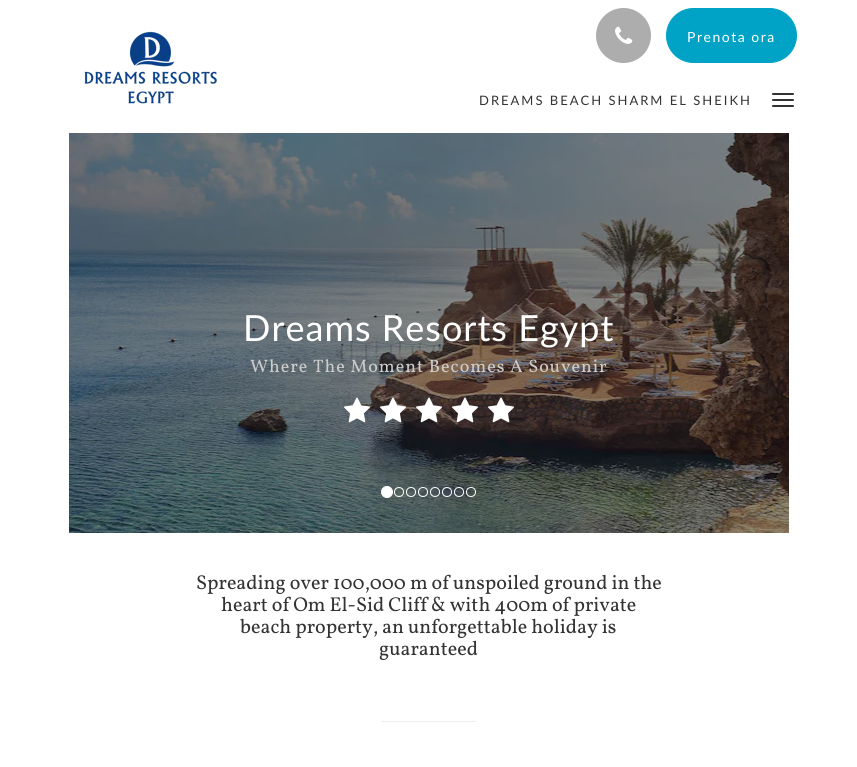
import math
import cairo

surface = cairo.ImageSurface(cairo.FORMAT_RGB24, 857, 767)
ctx = cairo.Context(surface)
options = cairo.FontOptions()
options.set_hint_metrics(cairo.HINT_METRICS_OFF)
options.set_hint_style(cairo.HINT_STYLE_NONE)
ctx.set_font_options(options)
ctx.set_miter_limit(4)


def spaced_text(x, y, s, letter, word):
    ctx.move_to(x, y)
    for ch in s:
        ctx.show_text(ch)
        ctx.rel_move_to(letter + word * (ch == ' '), 0)


def round_rect(x, y, w, h, r):
    ctx.new_sub_path()
    for i, (u, v) in enumerate([(x + w - r, y + h - r), (x + r, y + h - r), (x + r, y + r), (x + w - r, y + r)]):
        ctx.arc(u, v, r, i * math.pi / 2, (i + 1) * math.pi / 2)
    ctx.close_path()


def picture(path, x, y, w, h):
    ctx.save()
    ctx.set_source_surface(cairo.ImageSurface.create_from_png(path), x, y)
    ctx.rectangle(x, y, w, h)
    ctx.fill()
    ctx.restore()


ctx.set_source_rgb(1, 1, 1)
ctx.paint()
picture("img1.png", 84, 31, 133, 73)
ctx.set_source_rgb(0.678, 0.678, 0.678)
ctx.arc(623.5, 35.5, 27.5, 0, 2 * math.pi)
ctx.fill()
picture("img2.png", 615, 26, 18, 18)
ctx.set_source_rgb(0, 0.639, 0.776)
round_rect(666.5, 8.5, 130, 54, 27)
ctx.fill_preserve()
ctx.set_line_width(1)
ctx.stroke()
ctx.select_font_face("Lato")
ctx.set_font_size(14)
ctx.set_source_rgb(1, 1, 1)
spaced_text(687, 42, "Prenota ora", 1.5, 0)
ctx.set_font_size(13)
ctx.set_source_rgb(0.2, 0.2, 0.2)
spaced_text(479, 105, "DREAMS BEACH SHARM EL SHEIKH", 2, 0)
round_rect(772, 93, 22, 2, 1)
ctx.fill()
round_rect(772, 99, 22, 2, 1)
ctx.fill()
round_rect(772, 105, 22, 2, 1)
ctx.fill()
picture("img3.png", 69, 133, 720, 400)
ctx.set_source_rgb(1, 1, 1)
ctx.arc(387, 492, 5.5, 0, 2 * math.pi)
ctx.fill_preserve()
ctx.stroke()
ctx.arc(399, 492, 4.5, 0, 2 * math.pi)
ctx.stroke()
ctx.arc(411, 492, 4.5, 0, 2 * math.pi)
ctx.stroke()
ctx.arc(423, 492, 4.5, 0, 2 * math.pi)
ctx.stroke()
ctx.arc(435, 492, 4.5, 0, 2 * math.pi)
ctx.stroke()
ctx.arc(447, 492, 4.5, 0, 2 * math.pi)
ctx.stroke()
ctx.arc(459, 492, 4.5, 0, 2 * math.pi)
ctx.stroke()
ctx.arc(471, 492, 4.5, 0, 2 * math.pi)
ctx.stroke()
ctx.set_font_size(36)
spaced_text(243, 341, "Dreams Resorts Egypt", 1, 0)
ctx.select_font_face("Vollkorn")
ctx.set_font_size(18)
ctx.set_source_rgb(0.808, 0.804, 0.8)
spaced_text(250, 372, "Where The Moment Becomes A Souvenir", 1, 0)
picture("img4.png", 344, 397, 26, 26)
picture("img5.png", 380, 397, 26, 26)
picture("img6.png", 416, 397, 26, 26)
picture("img7.png", 452, 397, 26, 26)
picture("img8.png", 488, 397, 26, 26)
ctx.set_font_size(20)
ctx.set_source_rgb(0.2, 0.2, 0.2)
ctx.move_to(196, 589)
ctx.show_text("Spreading over 100,000 m of unspoiled ground in the")
ctx.move_to(221, 611)
ctx.show_text("heart of Om El-Sid Cliff & with 400m of private")
ctx.move_to(240, 633)
ctx.show_text("beach property, an unforgettable holiday is")
ctx.move_to(379, 655)
ctx.show_text("guaranteed")
ctx.set_source_rgb(0.933, 0.933, 0.933)
ctx.rectangle(381, 721, 95, 1)
ctx.fill()
surface.write_to_png("page.png")
